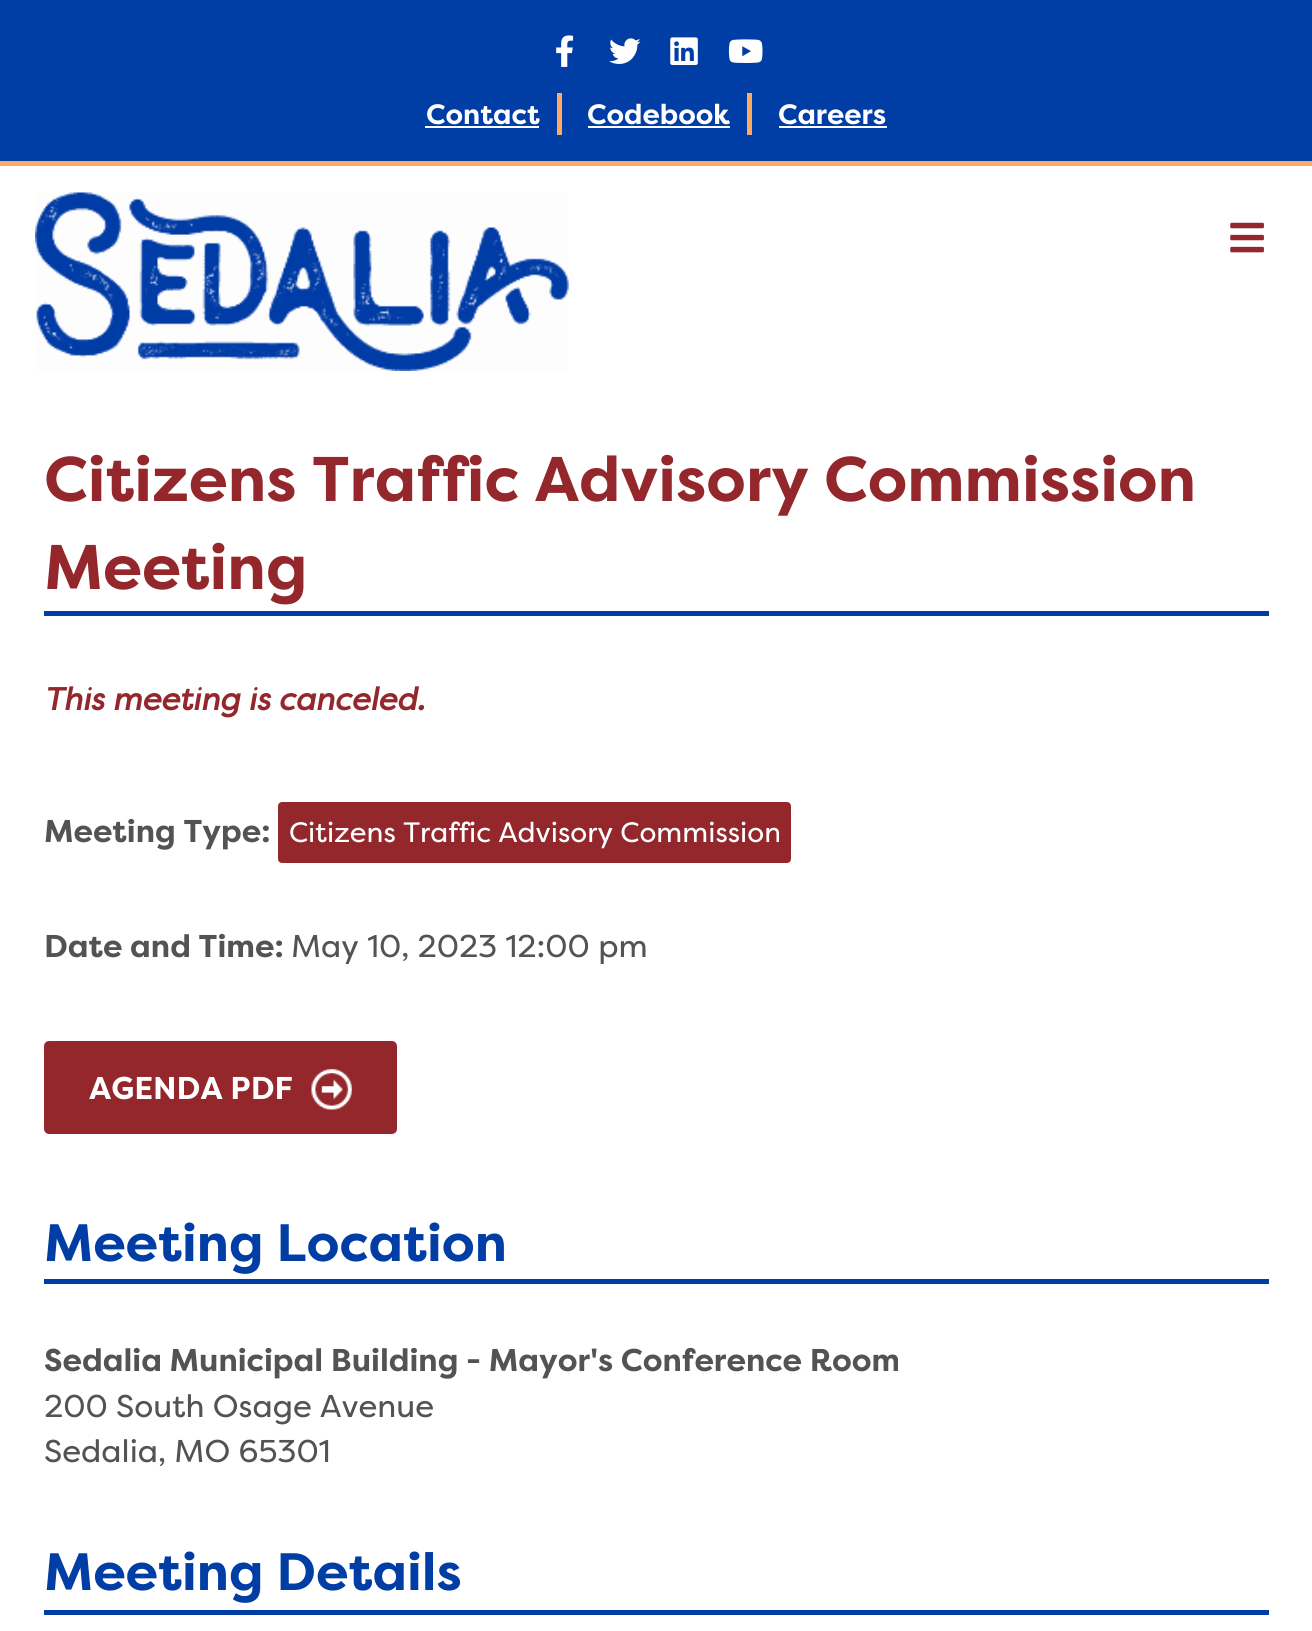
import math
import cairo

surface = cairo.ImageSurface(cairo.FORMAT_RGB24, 1312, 1631)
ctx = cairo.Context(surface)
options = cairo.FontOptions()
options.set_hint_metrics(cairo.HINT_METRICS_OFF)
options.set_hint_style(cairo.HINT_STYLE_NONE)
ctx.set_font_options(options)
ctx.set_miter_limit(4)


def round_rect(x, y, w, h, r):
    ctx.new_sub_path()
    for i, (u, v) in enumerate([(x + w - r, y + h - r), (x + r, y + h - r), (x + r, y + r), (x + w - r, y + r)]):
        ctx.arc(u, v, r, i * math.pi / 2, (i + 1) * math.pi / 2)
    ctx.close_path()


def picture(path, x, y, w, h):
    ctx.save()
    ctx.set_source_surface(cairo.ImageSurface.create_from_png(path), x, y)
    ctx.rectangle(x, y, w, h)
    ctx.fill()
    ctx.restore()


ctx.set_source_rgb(1, 1, 1)
ctx.paint()
ctx.set_source_rgb(0, 0.239, 0.647)
ctx.rectangle(0, 0, 1312, 161)
ctx.fill()
ctx.set_source_rgb(0.992, 0.667, 0.388)
ctx.rectangle(0, 161, 1312, 5)
ctx.fill()
picture("img1.png", 556, 35, 18, 32)
picture("img2.png", 609, 38, 32, 26)
picture("img3.png", 670, 37, 28, 28)
picture("img4.png", 728, 39, 35, 24)
ctx.rectangle(557, 93, 5, 42)
ctx.fill()
ctx.select_font_face("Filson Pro", cairo.FONT_SLANT_NORMAL, cairo.FONT_WEIGHT_BOLD)
ctx.set_font_size(28)
ctx.set_source_rgb(1, 1, 1)
ctx.move_to(426, 124)
ctx.show_text("Contact")
ctx.rectangle(425, 126, 114, 2)
ctx.fill()
ctx.set_source_rgb(0.992, 0.667, 0.388)
ctx.rectangle(747, 93, 5, 42)
ctx.fill()
ctx.set_source_rgb(1, 1, 1)
ctx.move_to(587, 124)
ctx.show_text("Codebook")
ctx.rectangle(588, 126, 142, 2)
ctx.fill()
ctx.move_to(778, 124)
ctx.show_text("Careers")
ctx.rectangle(779, 126, 108, 2)
ctx.fill()
picture("img5.png", 35, 192, 534, 179)
picture("img6.png", 1230, 222, 34, 31)
ctx.set_source_rgb(0, 0.239, 0.647)
ctx.rectangle(44, 611, 1225, 5)
ctx.fill()
ctx.set_font_size(63)
ctx.set_source_rgb(0.576, 0.153, 0.173)
ctx.move_to(44, 501)
ctx.show_text("Citizens Traffic Advisory Commission")
ctx.move_to(44, 589)
ctx.show_text("Meeting")
ctx.select_font_face("Filson Pro", cairo.FONT_SLANT_ITALIC, cairo.FONT_WEIGHT_BOLD)
ctx.set_font_size(31.5)
ctx.move_to(44, 710)
ctx.show_text("This meeting is canceled.")
ctx.select_font_face("Filson Pro", cairo.FONT_SLANT_NORMAL, cairo.FONT_WEIGHT_BOLD)
ctx.set_source_rgb(0.325, 0.325, 0.325)
ctx.move_to(44, 842)
ctx.show_text("Meeting Type:")
ctx.set_source_rgb(0.576, 0.153, 0.173)
round_rect(279, 803, 511, 59, 3)
ctx.fill_preserve()
ctx.stroke()
ctx.select_font_face("Filson Pro")
ctx.set_font_size(28)
ctx.set_source_rgb(1, 1, 1)
ctx.move_to(289, 842)
ctx.show_text("Citizens Traffic Advisory Commission")
ctx.select_font_face("Filson Pro", cairo.FONT_SLANT_NORMAL, cairo.FONT_WEIGHT_BOLD)
ctx.set_font_size(31.5)
ctx.set_source_rgb(0.325, 0.325, 0.325)
ctx.move_to(44, 957)
ctx.show_text("Date and Time:")
ctx.select_font_face("Filson Pro")
ctx.move_to(291, 957)
ctx.show_text("May 10, 2023 12:00 pm")
ctx.set_source_rgb(0.576, 0.153, 0.173)
round_rect(46, 1043, 349, 89, 3)
ctx.fill_preserve()
ctx.set_line_width(4)
ctx.stroke()
ctx.select_font_face("Filson Pro", cairo.FONT_SLANT_NORMAL, cairo.FONT_WEIGHT_BOLD)
ctx.set_source_rgb(1, 1, 1)
ctx.move_to(89, 1099)
ctx.show_text("AGENDA PDF")
picture("img7.png", 311, 1069, 41, 41)
ctx.set_source_rgb(0, 0.239, 0.647)
ctx.rectangle(44, 1279, 1225, 5)
ctx.fill()
ctx.set_font_size(52.5)
ctx.move_to(44, 1261)
ctx.show_text("Meeting Location")
ctx.set_font_size(31.5)
ctx.set_source_rgb(0.325, 0.325, 0.325)
ctx.move_to(44, 1371)
ctx.show_text("Sedalia Municipal Building - Mayor's Conference Room")
ctx.select_font_face("Filson Pro")
ctx.move_to(44, 1417)
ctx.show_text("200 South Osage Avenue")
ctx.move_to(44, 1462)
ctx.show_text("Sedalia, MO 65301")
ctx.set_source_rgb(0, 0.239, 0.647)
ctx.rectangle(44, 1610, 1225, 5)
ctx.fill()
ctx.select_font_face("Filson Pro", cairo.FONT_SLANT_NORMAL, cairo.FONT_WEIGHT_BOLD)
ctx.set_font_size(52.5)
ctx.move_to(44, 1590)
ctx.show_text("Meeting Details")
surface.write_to_png("page.png")
